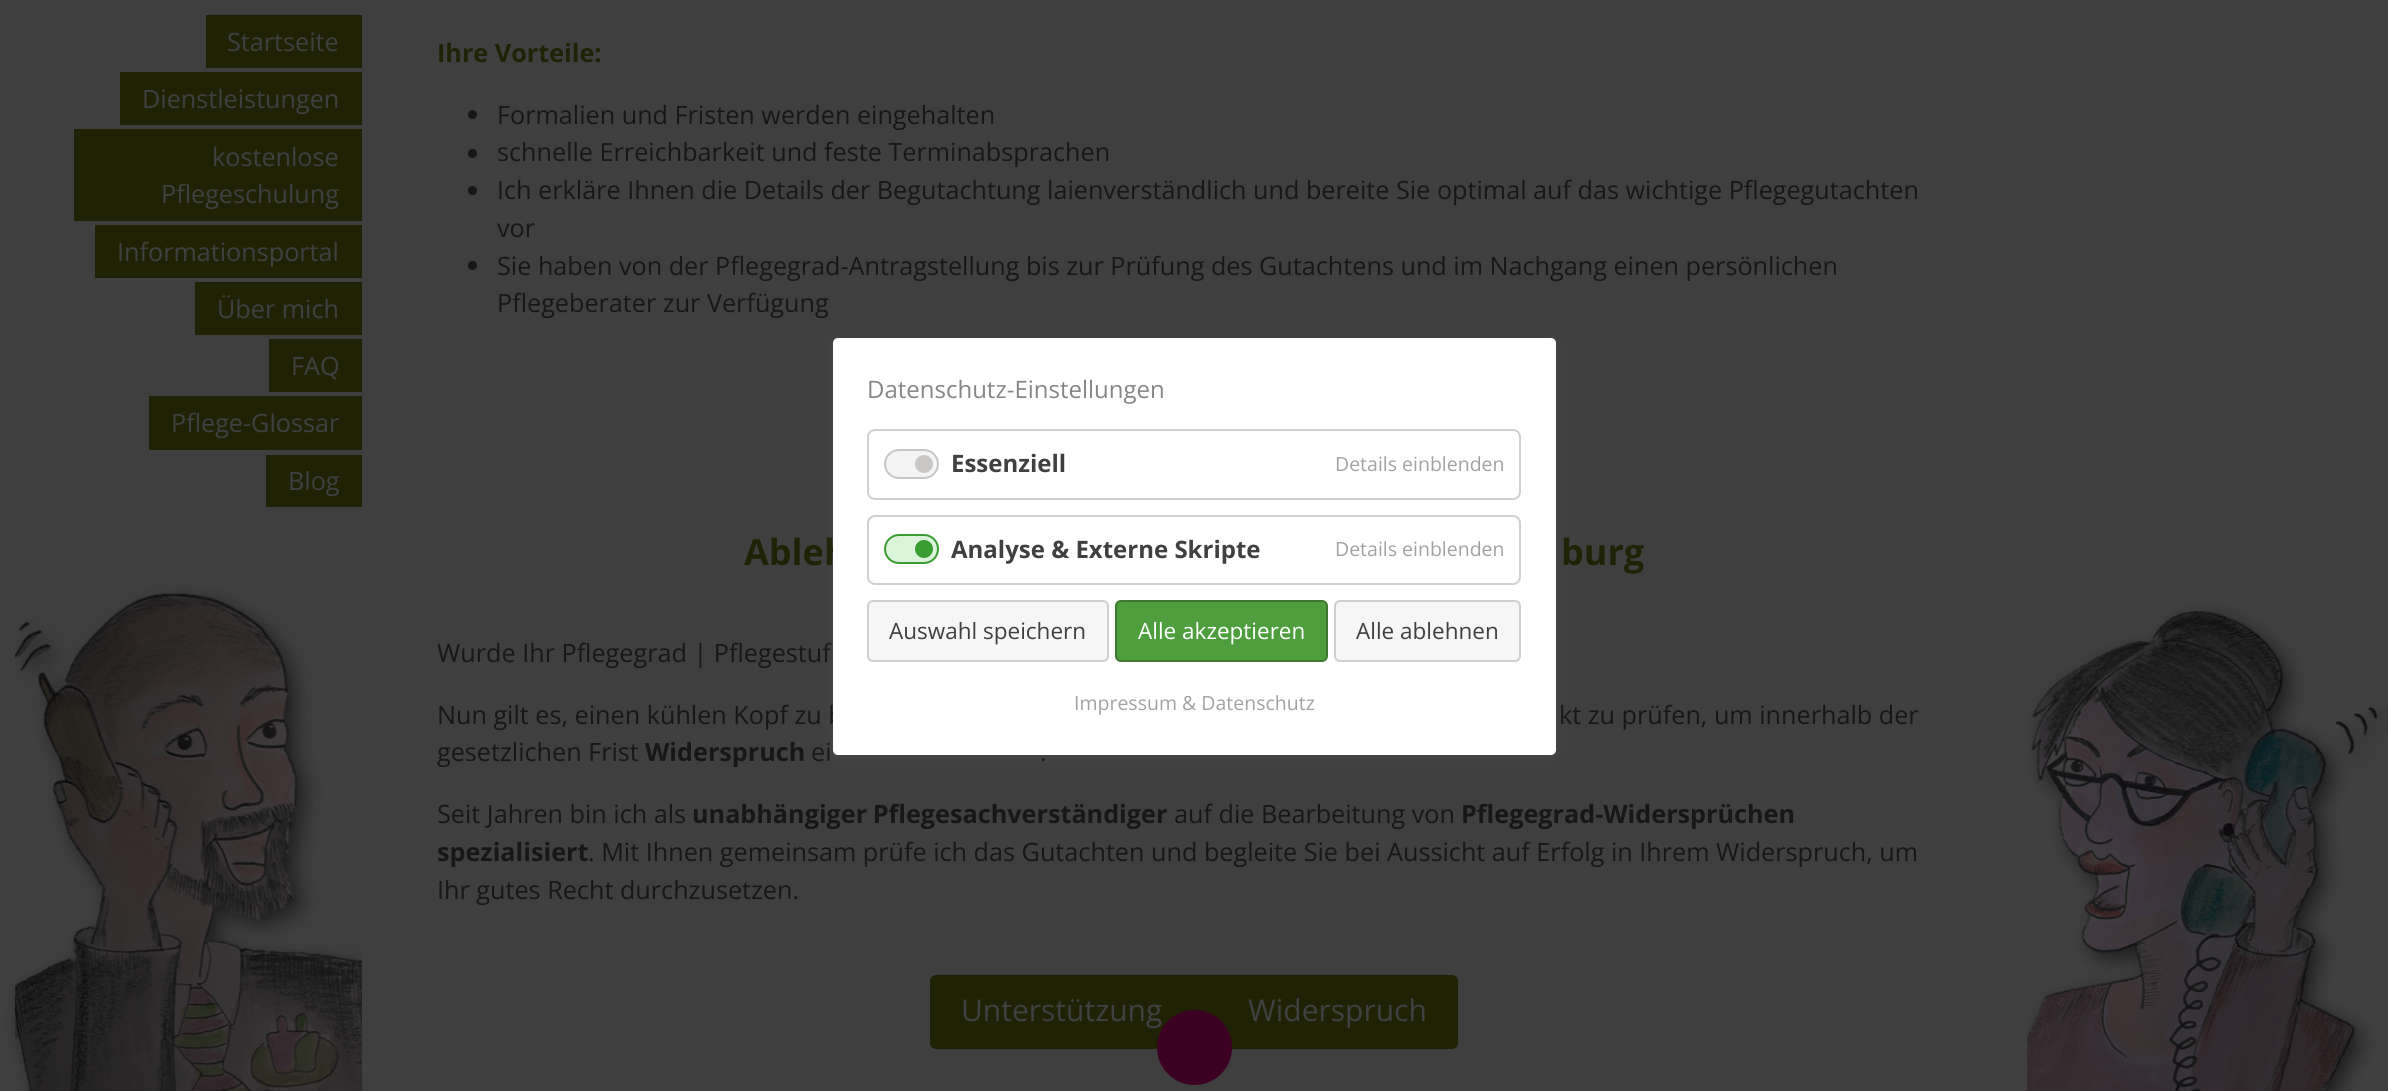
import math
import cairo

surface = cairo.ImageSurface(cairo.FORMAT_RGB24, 2388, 1091)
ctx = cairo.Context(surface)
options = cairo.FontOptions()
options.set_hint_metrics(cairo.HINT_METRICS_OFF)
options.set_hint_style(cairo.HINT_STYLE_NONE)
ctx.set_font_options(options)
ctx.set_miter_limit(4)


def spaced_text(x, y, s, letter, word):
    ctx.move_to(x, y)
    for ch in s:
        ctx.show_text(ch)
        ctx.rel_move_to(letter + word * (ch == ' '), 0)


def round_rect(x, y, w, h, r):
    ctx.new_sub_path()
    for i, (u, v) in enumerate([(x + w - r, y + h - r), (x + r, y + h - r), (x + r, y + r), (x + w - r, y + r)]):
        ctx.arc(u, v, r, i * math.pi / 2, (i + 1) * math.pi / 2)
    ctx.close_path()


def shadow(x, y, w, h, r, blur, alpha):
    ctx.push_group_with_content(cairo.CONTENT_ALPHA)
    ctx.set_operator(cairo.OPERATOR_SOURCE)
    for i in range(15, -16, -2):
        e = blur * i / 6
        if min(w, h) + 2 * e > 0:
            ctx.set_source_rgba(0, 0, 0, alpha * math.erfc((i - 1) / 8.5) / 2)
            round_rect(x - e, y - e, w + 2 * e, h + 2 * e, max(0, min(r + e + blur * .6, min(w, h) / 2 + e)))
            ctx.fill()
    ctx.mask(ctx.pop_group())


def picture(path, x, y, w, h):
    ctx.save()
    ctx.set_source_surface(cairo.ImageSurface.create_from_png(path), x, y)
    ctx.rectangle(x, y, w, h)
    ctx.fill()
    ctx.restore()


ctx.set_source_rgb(0.247, 0.247, 0.247)
ctx.paint()
ctx.set_source_rgb(0.125, 0.133, 0.02)
ctx.rectangle(206, 15, 156, 53)
ctx.fill()
ctx.select_font_face("Open Sans")
ctx.set_font_size(25.2)
ctx.set_source_rgb(0.251, 0.251, 0.251)
ctx.move_to(227, 51)
ctx.show_text("Startseite")
ctx.set_source_rgb(0.125, 0.133, 0.02)
ctx.rectangle(120, 72, 242, 53)
ctx.fill()
ctx.set_source_rgb(0.251, 0.251, 0.251)
ctx.move_to(142, 108)
ctx.show_text("Dienstleistungen")
ctx.set_source_rgb(0.125, 0.133, 0.02)
ctx.rectangle(74, 129, 288, 92)
ctx.fill()
ctx.set_source_rgb(0.251, 0.251, 0.251)
ctx.move_to(212, 166)
ctx.show_text("kostenlose")
ctx.move_to(161, 203)
ctx.show_text("Pflegeschulung")
ctx.set_source_rgb(0.125, 0.133, 0.02)
ctx.rectangle(95, 225, 267, 53)
ctx.fill()
ctx.set_source_rgb(0.251, 0.251, 0.251)
ctx.move_to(117, 261)
ctx.show_text("Informationsportal")
ctx.set_source_rgb(0.125, 0.133, 0.02)
ctx.rectangle(195, 282, 167, 53)
ctx.fill()
ctx.set_source_rgb(0.251, 0.251, 0.251)
ctx.move_to(217, 318)
ctx.show_text("Über mich")
ctx.set_source_rgb(0.125, 0.133, 0.02)
ctx.rectangle(269, 339, 93, 53)
ctx.fill()
ctx.set_source_rgb(0.251, 0.251, 0.251)
ctx.move_to(291, 375)
ctx.show_text("FAQ")
ctx.set_source_rgb(0.125, 0.133, 0.02)
ctx.rectangle(149, 396, 213, 54)
ctx.fill()
ctx.set_source_rgb(0.251, 0.251, 0.251)
ctx.move_to(171, 432)
ctx.show_text("Pflege-Glossar")
ctx.set_source_rgb(0.125, 0.133, 0.02)
ctx.rectangle(266, 455, 96, 52)
ctx.fill()
ctx.set_source_rgb(0.251, 0.251, 0.251)
ctx.move_to(288, 490)
ctx.show_text("Blog")
picture("img1.png", 2, 581, 360, 510)
ctx.select_font_face("Open Sans", cairo.FONT_SLANT_NORMAL, cairo.FONT_WEIGHT_BOLD)
ctx.set_source_rgb(0.125, 0.133, 0.02)
ctx.move_to(437, 62)
ctx.show_text("Ihre Vorteile:")
ctx.set_source_rgb(0.09, 0.09, 0.09)
ctx.new_path()
ctx.arc(472.5, 114.5, 4.5, 0, 2 * math.pi)
ctx.fill()
ctx.select_font_face("Open Sans")
ctx.move_to(497, 124)
ctx.show_text("Formalien und Fristen werden eingehalten")
ctx.new_path()
ctx.arc(472.5, 153.5, 4.5, 0, 2 * math.pi)
ctx.fill()
ctx.move_to(497, 161)
ctx.show_text("schnelle Erreichbarkeit und feste Terminabsprachen")
ctx.new_path()
ctx.arc(472.5, 190.5, 4.5, 0, 2 * math.pi)
ctx.fill()
ctx.move_to(497, 199)
ctx.show_text("Ich erkläre Ihnen die Details der Begutachtung laienverständlich und bereite Sie optimal auf das wichtige Pflegegutachten")
ctx.move_to(497, 237)
ctx.show_text("vor")
ctx.new_path()
ctx.arc(472.5, 265.5, 4.5, 0, 2 * math.pi)
ctx.fill()
ctx.move_to(497, 275)
ctx.show_text("Sie haben von der Pflegegrad-Antragstellung bis zur Prüfung des Gutachtens und im Nachgang einen persönlichen")
ctx.move_to(497, 312)
ctx.show_text("Pflegeberater zur Verfügung")
ctx.select_font_face("Open Sans", cairo.FONT_SLANT_NORMAL, cairo.FONT_WEIGHT_BOLD)
ctx.set_font_size(36)
ctx.set_source_rgb(0.125, 0.133, 0.02)
ctx.move_to(744, 565)
ctx.show_text("Ableh")
ctx.move_to(1561, 565)
ctx.show_text("burg")
ctx.select_font_face("Open Sans")
ctx.set_font_size(25.2)
ctx.set_source_rgb(0.09, 0.09, 0.09)
ctx.move_to(437, 662)
ctx.show_text("Wurde Ihr Pflegegrad | Pflegestuf")
ctx.move_to(437, 724)
ctx.show_text("Nun gilt es, einen kühlen Kopf zu b")
ctx.move_to(1559, 724)
ctx.show_text("kt zu prüfen, um innerhalb der")
ctx.move_to(437, 761)
ctx.show_text("gesetzlichen Frist")
ctx.select_font_face("Open Sans", cairo.FONT_SLANT_NORMAL, cairo.FONT_WEIGHT_BOLD)
ctx.move_to(645, 761)
ctx.show_text("Widerspruch")
ctx.select_font_face("Open Sans")
ctx.move_to(811, 761)
ctx.show_text("ei")
ctx.move_to(1040, 761)
ctx.show_text(".")
ctx.move_to(437, 823)
ctx.show_text("Seit Jahren bin ich als")
ctx.select_font_face("Open Sans", cairo.FONT_SLANT_NORMAL, cairo.FONT_WEIGHT_BOLD)
spaced_text(692, 823, "unabhängiger Pflegesachverständiger", 0, -1)
ctx.select_font_face("Open Sans")
ctx.move_to(1174, 823)
ctx.show_text("auf die Bearbeitung von")
ctx.select_font_face("Open Sans", cairo.FONT_SLANT_NORMAL, cairo.FONT_WEIGHT_BOLD)
ctx.move_to(1461, 823)
ctx.show_text("Pflegegrad-Widersprüchen")
ctx.move_to(437, 861)
ctx.show_text("spezialisiert")
ctx.select_font_face("Open Sans")
ctx.move_to(588, 861)
ctx.show_text(". Mit Ihnen gemeinsam prüfe ich das Gutachten und begleite Sie bei Aussicht auf Erfolg in Ihrem Widerspruch, um")
ctx.move_to(437, 899)
ctx.show_text("Ihr gutes Recht durchzusetzen.")
ctx.set_source_rgb(0.125, 0.133, 0.02)
round_rect(931, 976, 526, 72, 5)
ctx.fill_preserve()
ctx.stroke()
ctx.set_font_size(30)
ctx.set_source_rgb(0.251, 0.251, 0.251)
ctx.move_to(961, 1021)
ctx.show_text("Unterstützung")
ctx.move_to(1248, 1021)
ctx.show_text("Widerspruch")
picture("img2.png", 2027, 601, 361, 490)
ctx.set_source_rgb(0.388, 0.388, 0.388)
shadow(833, 341, 723, 417, 5, 6, 0.2)
ctx.set_source_rgb(1, 1, 1)
round_rect(833, 338, 723, 417, 5)
ctx.fill()
ctx.set_font_size(24)
ctx.set_source_rgb(0.525, 0.525, 0.525)
ctx.move_to(867, 398)
ctx.show_text("Datenschutz-Einstellungen")
round_rect(868, 430, 652, 69, 7)
ctx.set_source_rgb(0.816, 0.816, 0.816)
ctx.stroke()
ctx.set_source_rgb(0.957, 0.957, 0.957)
round_rect(885, 450, 53, 28, 14)
ctx.fill_preserve()
ctx.set_source_rgb(0.784, 0.78, 0.773)
ctx.stroke()
ctx.select_font_face("Open Sans", cairo.FONT_SLANT_NORMAL, cairo.FONT_WEIGHT_BOLD)
ctx.set_source_rgb(0.251, 0.251, 0.251)
ctx.move_to(951, 472)
ctx.show_text("Essenziell")
ctx.set_source_rgb(0.784, 0.78, 0.773)
ctx.new_path()
ctx.arc(924, 464, 9, 0, 2 * math.pi)
ctx.fill()
ctx.select_font_face("Open Sans")
ctx.set_font_size(19.5)
ctx.set_source_rgb(0.635, 0.635, 0.635)
ctx.move_to(1335, 471)
ctx.show_text("Details einblenden")
round_rect(868, 516, 652, 68, 7)
ctx.set_source_rgb(0.816, 0.816, 0.816)
ctx.stroke()
ctx.set_source_rgb(0.863, 0.953, 0.859)
round_rect(885, 535, 53, 28, 14)
ctx.fill_preserve()
ctx.set_source_rgb(0.224, 0.616, 0.196)
ctx.stroke()
ctx.select_font_face("Open Sans", cairo.FONT_SLANT_NORMAL, cairo.FONT_WEIGHT_BOLD)
ctx.set_font_size(24)
ctx.set_source_rgb(0.251, 0.251, 0.251)
ctx.move_to(951, 558)
ctx.show_text("Analyse & Externe Skripte")
ctx.set_source_rgb(0.224, 0.616, 0.196)
ctx.new_path()
ctx.arc(924, 549, 9, 0, 2 * math.pi)
ctx.fill()
ctx.select_font_face("Open Sans")
ctx.set_font_size(19.5)
ctx.set_source_rgb(0.635, 0.635, 0.635)
ctx.move_to(1335, 556)
ctx.show_text("Details einblenden")
ctx.set_source_rgb(0.961, 0.961, 0.961)
round_rect(868, 601, 240, 60, 5)
ctx.fill_preserve()
ctx.set_source_rgb(0.812, 0.812, 0.812)
ctx.stroke()
ctx.set_font_size(22.5)
ctx.set_source_rgb(0.251, 0.251, 0.251)
ctx.move_to(889, 639)
ctx.show_text("Auswahl speichern")
ctx.set_source_rgb(0.306, 0.62, 0.243)
round_rect(1116, 601, 211, 60, 5)
ctx.fill_preserve()
ctx.set_source_rgb(0.243, 0.471, 0.188)
ctx.stroke()
ctx.set_source_rgb(1, 1, 1)
ctx.move_to(1138, 639)
ctx.show_text("Alle akzeptieren")
ctx.set_source_rgb(0.961, 0.961, 0.961)
round_rect(1335, 601, 185, 60, 5)
ctx.fill_preserve()
ctx.set_source_rgb(0.812, 0.812, 0.812)
ctx.stroke()
ctx.set_source_rgb(0.251, 0.251, 0.251)
ctx.move_to(1356, 639)
ctx.show_text("Alle ablehnen")
ctx.set_font_size(19.5)
ctx.set_source_rgb(0.635, 0.635, 0.635)
ctx.move_to(1074, 710)
ctx.show_text("Impressum & Datenschutz")
ctx.set_source_rgb(0.231, 0, 0.133)
ctx.new_path()
ctx.arc(1194.5, 1047.5, 37.5, 0, 2 * math.pi)
ctx.fill()
surface.write_to_png("page.png")
